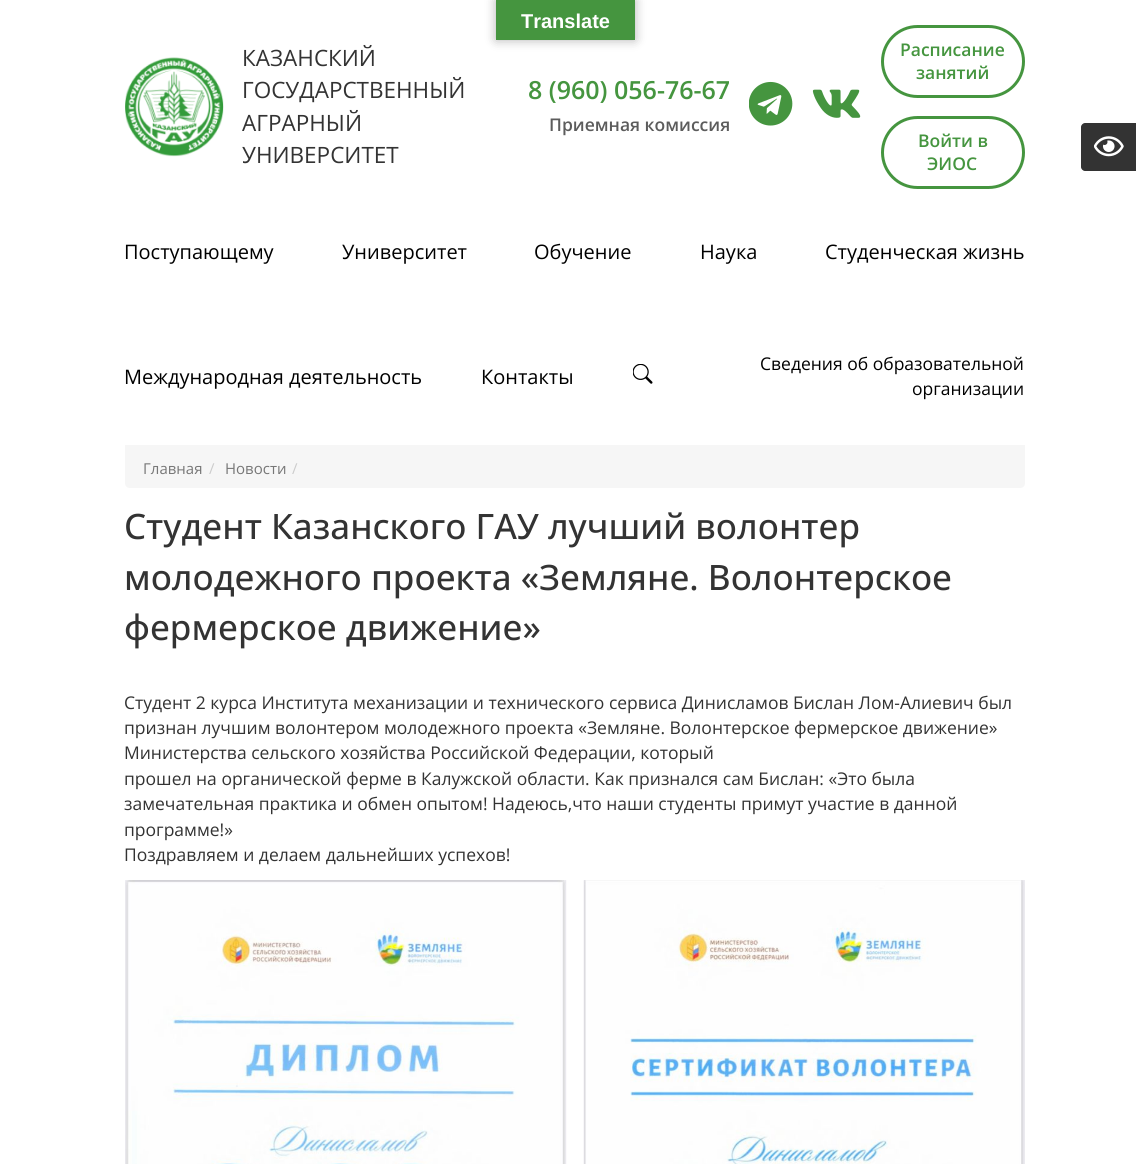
import math
import cairo

surface = cairo.ImageSurface(cairo.FORMAT_RGB24, 1148, 1164)
ctx = cairo.Context(surface)
options = cairo.FontOptions()
options.set_hint_metrics(cairo.HINT_METRICS_OFF)
options.set_hint_style(cairo.HINT_STYLE_NONE)
ctx.set_font_options(options)
ctx.set_miter_limit(4)


def round_rect(x, y, w, h, r):
    ctx.new_sub_path()
    for i, (u, v) in enumerate([(x + w - r, y + h - r), (x + r, y + h - r), (x + r, y + r), (x + w - r, y + r)]):
        ctx.arc(u, v, r, i * math.pi / 2, (i + 1) * math.pi / 2)
    ctx.close_path()


def shadow(x, y, w, h, r, blur, alpha):
    ctx.push_group_with_content(cairo.CONTENT_ALPHA)
    ctx.set_operator(cairo.OPERATOR_SOURCE)
    for i in range(15, -16, -2):
        e = blur * i / 6
        if min(w, h) + 2 * e > 0:
            ctx.set_source_rgba(0, 0, 0, alpha * math.erfc((i - 1) / 8.5) / 2)
            round_rect(x - e, y - e, w + 2 * e, h + 2 * e, max(0, min(r + e + blur * .6, min(w, h) / 2 + e)))
            ctx.fill()
    ctx.mask(ctx.pop_group())


def picture(path, x, y, w, h):
    ctx.save()
    ctx.set_source_surface(cairo.ImageSurface.create_from_png(path), x, y)
    ctx.rectangle(x, y, w, h)
    ctx.fill()
    ctx.restore()


ctx.set_source_rgb(1, 1, 1)
ctx.paint()
ctx.set_source_rgb(0, 0, 0)
shadow(496, 0, 139, 40, 0, 5.5, 0.3)
ctx.set_source_rgb(0.271, 0.584, 0.247)
ctx.rectangle(496, 0, 139, 40)
ctx.fill()
ctx.select_font_face("Liberation Sans", cairo.FONT_SLANT_NORMAL, cairo.FONT_WEIGHT_BOLD)
ctx.set_font_size(20)
ctx.set_source_rgb(1, 1, 1)
ctx.move_to(521, 28)
ctx.show_text("Translate")
picture("img1.png", 125, 57, 99, 100)
ctx.select_font_face("Open Sans")
ctx.set_font_size(22.5)
ctx.set_source_rgb(0.2, 0.2, 0.2)
ctx.move_to(242, 66)
ctx.show_text("КАЗАНСКИЙ")
ctx.move_to(242, 98)
ctx.show_text("ГОСУДАРСТВЕННЫЙ")
ctx.move_to(242, 131)
ctx.show_text("АГРАРНЫЙ")
ctx.move_to(242, 163)
ctx.show_text("УНИВЕРСИТЕТ")
ctx.select_font_face("Open Sans SemiBold")
ctx.set_font_size(25)
ctx.set_source_rgb(0.271, 0.584, 0.247)
ctx.move_to(528, 99)
ctx.show_text("8 (960) 056-76-67")
ctx.set_font_size(17.5)
ctx.set_source_rgb(0.361, 0.361, 0.361)
ctx.move_to(549, 131)
ctx.show_text("Приемная комиссия")
picture("img2.png", 749, 81, 44, 45)
picture("img3.png", 812, 89, 49, 29)
round_rect(882.5, 26.5, 141, 70, 35)
ctx.set_source_rgb(0.271, 0.584, 0.247)
ctx.set_line_width(3)
ctx.stroke()
ctx.move_to(900, 56)
ctx.show_text("Расписание")
ctx.move_to(916, 79)
ctx.show_text("занятий")
round_rect(882.5, 117.5, 141, 70, 35)
ctx.stroke()
ctx.move_to(918, 147)
ctx.show_text("Войти в")
ctx.move_to(927, 170)
ctx.show_text("ЭИОС")
ctx.set_source_rgb(0.2, 0.2, 0.2)
ctx.new_path()
ctx.move_to(1085, 123)
ctx.line_to(1136, 123)
ctx.line_to(1136, 171)
ctx.line_to(1085, 171)
ctx.curve_to(1083, 171, 1081, 169, 1081, 167)
ctx.line_to(1081, 127)
ctx.curve_to(1081, 125, 1083, 123, 1085, 123)
ctx.close_path()
ctx.fill()
picture("img4.png", 1094, 136, 30, 21)
ctx.select_font_face("Open Sans")
ctx.set_font_size(20)
ctx.set_source_rgb(0, 0, 0)
ctx.move_to(124, 259)
ctx.show_text("Поступающему")
ctx.move_to(342, 259)
ctx.show_text("Университет")
ctx.move_to(534, 259)
ctx.show_text("Обучение")
ctx.move_to(700, 259)
ctx.show_text("Наука")
ctx.move_to(825, 259)
ctx.show_text("Студенческая жизнь")
ctx.move_to(124, 384)
ctx.show_text("Международная деятельность")
ctx.move_to(481, 384)
ctx.show_text("Контакты")
picture("img5.png", 633, 364, 20, 20)
ctx.set_font_size(17.5)
ctx.move_to(760, 370)
ctx.show_text("Сведения об образовательной")
ctx.move_to(912, 395)
ctx.show_text("организации")
ctx.set_source_rgb(0.961, 0.961, 0.961)
ctx.new_path()
ctx.move_to(125, 445)
ctx.line_to(1025, 445)
ctx.line_to(1025, 483)
ctx.curve_to(1025, 486, 1023, 488, 1020, 488)
ctx.line_to(130, 488)
ctx.curve_to(127, 488, 125, 486, 125, 483)
ctx.close_path()
ctx.fill()
ctx.set_font_size(15)
ctx.set_source_rgb(0.467, 0.467, 0.467)
ctx.move_to(143, 474)
ctx.show_text("Главная")
ctx.set_source_rgb(0.8, 0.8, 0.8)
ctx.move_to(209, 474)
ctx.show_text("/")
ctx.set_source_rgb(0.467, 0.467, 0.467)
ctx.move_to(225, 474)
ctx.show_text("Новости")
ctx.set_source_rgb(0.8, 0.8, 0.8)
ctx.move_to(292, 474)
ctx.show_text("/")
ctx.select_font_face("Open Sans Medium")
ctx.set_font_size(35)
ctx.set_source_rgb(0.2, 0.2, 0.2)
ctx.move_to(124, 539)
ctx.show_text("Студент Казанского ГАУ лучший волонтер")
ctx.move_to(124, 590)
ctx.show_text("молодежного проекта «Земляне. Волонтерское")
ctx.move_to(124, 640)
ctx.show_text("фермерское движение»")
ctx.select_font_face("Open Sans")
ctx.set_font_size(17.5)
ctx.move_to(124, 709)
ctx.show_text("Студент 2 курса Института механизации и технического сервиса Динисламов Бислан Лом-Алиевич был")
ctx.move_to(124, 734)
ctx.show_text("признан лучшим волонтером молодежного проекта «Земляне. Волонтерское фермерское движение»")
ctx.move_to(124, 759)
ctx.show_text("Министерства сельского хозяйства Российской Федерации, который")
ctx.move_to(124, 785)
ctx.show_text("прошел на органической ферме в Калужской области. Как признался сам Бислан: «Это была")
ctx.move_to(124, 810)
ctx.show_text("замечательная практика и обмен опытом! Надеюсь,что наши студенты примут участие в данной")
ctx.move_to(124, 836)
ctx.show_text("программе!»")
ctx.move_to(124, 861)
ctx.show_text("Поздравляем и делаем дальнейших успехов!")
picture("img6.png", 125, 880, 442, 284)
picture("img7.png", 583, 880, 442, 284)
surface.write_to_png("page.png")
